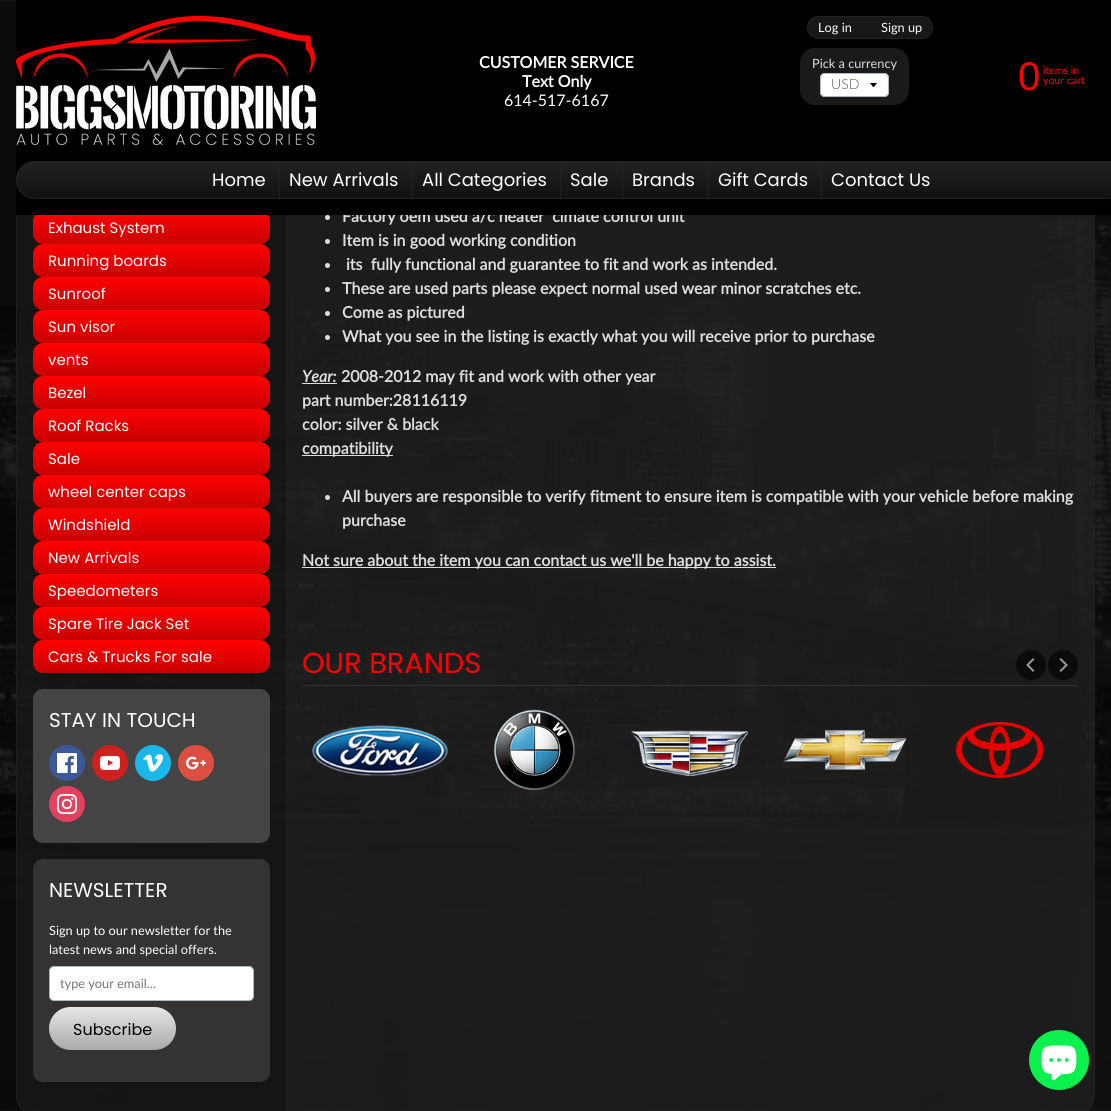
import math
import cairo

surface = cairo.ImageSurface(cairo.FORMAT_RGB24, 1111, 1111)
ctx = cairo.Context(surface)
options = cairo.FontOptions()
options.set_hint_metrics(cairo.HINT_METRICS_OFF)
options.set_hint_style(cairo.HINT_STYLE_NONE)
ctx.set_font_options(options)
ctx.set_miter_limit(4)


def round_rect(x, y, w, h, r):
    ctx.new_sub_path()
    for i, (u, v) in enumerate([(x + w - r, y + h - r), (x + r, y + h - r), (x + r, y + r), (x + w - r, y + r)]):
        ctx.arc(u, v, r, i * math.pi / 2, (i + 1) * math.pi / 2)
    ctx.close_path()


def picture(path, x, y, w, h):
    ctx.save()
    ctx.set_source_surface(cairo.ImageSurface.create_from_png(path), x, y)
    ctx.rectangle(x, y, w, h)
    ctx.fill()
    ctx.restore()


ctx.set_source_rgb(1, 1, 1)
ctx.paint()
picture("img1.png", 0, 0, 1111, 1111)
round_rect(16.5, -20.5, 1078, 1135, 19.5)
ctx.set_source_rgba(0.133, 0.133, 0.133, 0.7)
ctx.set_line_width(1)
ctx.stroke()
ctx.set_source_rgba(0, 0, 0, 0.25)
ctx.new_path()
ctx.move_to(36, -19)
ctx.line_to(286, -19)
ctx.line_to(286, 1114)
ctx.line_to(36, 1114)
ctx.curve_to(25.5, 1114, 17, 1105.5, 17, 1095)
ctx.line_to(17, 0)
ctx.curve_to(17, -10.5, 25.5, -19, 36, -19)
ctx.close_path()
ctx.fill()
gradient = cairo.LinearGradient(152, 211, 152, 244)
gradient.add_color_stop_rgba(0, 1, 0, 0, 1)
gradient.add_color_stop_rgba(1, 0.784, 0.008, 0.008, 1)
ctx.set_source(gradient)
round_rect(33, 211, 237, 33, 10)
ctx.fill()
ctx.select_font_face("Lato", cairo.FONT_SLANT_NORMAL, cairo.FONT_WEIGHT_BOLD)
ctx.set_font_size(16)
ctx.set_source_rgb(0.867, 0.867, 0.867)
ctx.move_to(342, 222)
ctx.show_text("Factory oem used a/c heater  clmate control unit")
ctx.set_source_rgb(0, 0, 0)
ctx.rectangle(16, 0, 1095, 215)
ctx.fill()
ctx.set_source_rgb(0.094, 0.094, 0.094)
round_rect(807.5, 16.5, 125, 22, 11)
ctx.fill_preserve()
ctx.set_source_rgb(0.133, 0.133, 0.133)
ctx.stroke()
ctx.select_font_face("Lato")
ctx.set_font_size(12.75)
ctx.set_source_rgb(1, 1, 1)
ctx.move_to(818, 32)
ctx.show_text("Log in")
ctx.move_to(881, 32)
ctx.show_text("Sign up")
picture("img2.png", 16, 16, 300, 129)
ctx.select_font_face("Lato", cairo.FONT_SLANT_NORMAL, cairo.FONT_WEIGHT_BOLD)
ctx.set_font_size(16)
ctx.move_to(479, 68)
ctx.show_text("CUSTOMER SERVICE")
ctx.move_to(522, 87)
ctx.show_text("Text Only")
ctx.select_font_face("Lato")
ctx.move_to(504, 106)
ctx.show_text("614-517-6167")
ctx.select_font_face("Liberation Sans")
ctx.set_font_size(40)
ctx.set_source_rgb(1, 0, 0)
ctx.move_to(1018, 90)
ctx.show_text("0")
ctx.select_font_face("Lato")
ctx.set_font_size(10.5)
ctx.move_to(1043, 74)
ctx.show_text("items in")
ctx.move_to(1043, 84)
ctx.show_text("your cart")
ctx.save()
round_rect(16, 161, 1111, 38, 19)
ctx.clip()
gradient = cairo.LinearGradient(572, 162, 572, 198)
gradient.add_color_stop_rgba(0, 0.133, 0.133, 0.133, 1)
gradient.add_color_stop_rgba(1, 0.067, 0.067, 0.067, 1)
ctx.set_source(gradient)
ctx.rectangle(16, 162, 1095, 36)
ctx.fill()
ctx.restore()
round_rect(16.5, 161.5, 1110, 37, 18.5)
ctx.set_source_rgb(0.133, 0.133, 0.133)
ctx.stroke()
ctx.select_font_face("Poppins")
ctx.set_font_size(18)
ctx.set_source_rgb(1, 1, 1)
ctx.move_to(212, 186)
ctx.show_text("Home")
ctx.set_source_rgb(0.133, 0.133, 0.133)
ctx.rectangle(279, 162, 1, 36)
ctx.fill()
ctx.set_source_rgb(1, 1, 1)
ctx.move_to(289, 186)
ctx.show_text("New Arrivals")
ctx.set_source_rgb(0.133, 0.133, 0.133)
ctx.rectangle(412, 162, 1, 36)
ctx.fill()
ctx.set_source_rgb(1, 1, 1)
ctx.move_to(422, 186)
ctx.show_text("All Categories")
ctx.set_source_rgb(0.133, 0.133, 0.133)
ctx.rectangle(560, 162, 1, 36)
ctx.fill()
ctx.set_source_rgb(1, 1, 1)
ctx.move_to(570, 186)
ctx.show_text("Sale")
ctx.set_source_rgb(0.133, 0.133, 0.133)
ctx.rectangle(622, 162, 1, 36)
ctx.fill()
ctx.set_source_rgb(1, 1, 1)
ctx.move_to(632, 186)
ctx.show_text("Brands")
ctx.set_source_rgb(0.133, 0.133, 0.133)
ctx.rectangle(708, 162, 1, 36)
ctx.fill()
ctx.set_source_rgb(1, 1, 1)
ctx.move_to(718, 186)
ctx.show_text("Gift Cards")
ctx.set_source_rgb(0.133, 0.133, 0.133)
ctx.rectangle(821, 162, 1, 36)
ctx.fill()
ctx.set_source_rgb(1, 1, 1)
ctx.move_to(831, 186)
ctx.show_text("Contact Us")
ctx.set_source_rgb(0.102, 0.102, 0.102)
round_rect(800, 48, 109, 57, 15)
ctx.fill()
ctx.select_font_face("Lato")
ctx.set_font_size(12.75)
ctx.set_source_rgb(0.867, 0.867, 0.867)
ctx.move_to(812, 68)
ctx.show_text("Pick a currency")
ctx.set_source_rgb(1, 1, 1)
round_rect(820, 73, 69, 24, 5)
ctx.fill()
ctx.set_source_rgb(0, 0, 0)
ctx.new_path()
ctx.move_to(870, 83)
ctx.curve_to(874.5, 88.5, 872.5, 88.5, 877, 83)
ctx.close_path()
ctx.fill()
round_rect(820.5, 73.5, 68, 23, 4.5)
ctx.set_source_rgb(0.698, 0.725, 0.741)
ctx.stroke()
ctx.select_font_face("Lato Light")
ctx.set_font_size(14)
ctx.set_source_rgb(0.333, 0.333, 0.333)
ctx.move_to(831, 89)
ctx.show_text("USD")
ctx.select_font_face("Poppins")
ctx.set_font_size(15)
ctx.set_source_rgb(1, 1, 1)
ctx.move_to(48, 233)
ctx.show_text("Exhaust System")
gradient = cairo.LinearGradient(152, 244, 152, 277)
gradient.add_color_stop_rgba(0, 1, 0, 0, 1)
gradient.add_color_stop_rgba(1, 0.784, 0.008, 0.008, 1)
ctx.set_source(gradient)
round_rect(33, 244, 237, 33, 10)
ctx.fill()
ctx.set_source_rgb(1, 1, 1)
ctx.move_to(48, 266)
ctx.show_text("Running boards")
gradient = cairo.LinearGradient(152, 277, 152, 310)
gradient.add_color_stop_rgba(0, 1, 0, 0, 1)
gradient.add_color_stop_rgba(1, 0.784, 0.008, 0.008, 1)
ctx.set_source(gradient)
round_rect(33, 277, 237, 33, 10)
ctx.fill()
ctx.set_source_rgb(1, 1, 1)
ctx.move_to(48, 299)
ctx.show_text("Sunroof")
gradient = cairo.LinearGradient(152, 310, 152, 343)
gradient.add_color_stop_rgba(0, 1, 0, 0, 1)
gradient.add_color_stop_rgba(1, 0.784, 0.008, 0.008, 1)
ctx.set_source(gradient)
round_rect(33, 310, 237, 33, 10)
ctx.fill()
ctx.set_source_rgb(1, 1, 1)
ctx.move_to(48, 332)
ctx.show_text("Sun visor")
gradient = cairo.LinearGradient(152, 343, 152, 376)
gradient.add_color_stop_rgba(0, 1, 0, 0, 1)
gradient.add_color_stop_rgba(1, 0.784, 0.008, 0.008, 1)
ctx.set_source(gradient)
round_rect(33, 343, 237, 33, 10)
ctx.fill()
ctx.set_source_rgb(1, 1, 1)
ctx.move_to(48, 365)
ctx.show_text("vents")
gradient = cairo.LinearGradient(152, 376, 152, 409)
gradient.add_color_stop_rgba(0, 1, 0, 0, 1)
gradient.add_color_stop_rgba(1, 0.784, 0.008, 0.008, 1)
ctx.set_source(gradient)
round_rect(33, 376, 237, 33, 10)
ctx.fill()
ctx.set_source_rgb(1, 1, 1)
ctx.move_to(48, 398)
ctx.show_text("Bezel")
gradient = cairo.LinearGradient(152, 409, 152, 442)
gradient.add_color_stop_rgba(0, 1, 0, 0, 1)
gradient.add_color_stop_rgba(1, 0.784, 0.008, 0.008, 1)
ctx.set_source(gradient)
round_rect(33, 409, 237, 33, 10)
ctx.fill()
ctx.set_source_rgb(1, 1, 1)
ctx.move_to(48, 431)
ctx.show_text("Roof Racks")
gradient = cairo.LinearGradient(152, 442, 152, 475)
gradient.add_color_stop_rgba(0, 1, 0, 0, 1)
gradient.add_color_stop_rgba(1, 0.784, 0.008, 0.008, 1)
ctx.set_source(gradient)
round_rect(33, 442, 237, 33, 10)
ctx.fill()
ctx.set_source_rgb(1, 1, 1)
ctx.move_to(48, 464)
ctx.show_text("Sale")
gradient = cairo.LinearGradient(152, 475, 152, 508)
gradient.add_color_stop_rgba(0, 1, 0, 0, 1)
gradient.add_color_stop_rgba(1, 0.784, 0.008, 0.008, 1)
ctx.set_source(gradient)
round_rect(33, 475, 237, 33, 10)
ctx.fill()
ctx.set_source_rgb(1, 1, 1)
ctx.move_to(48, 497)
ctx.show_text("wheel center caps")
gradient = cairo.LinearGradient(152, 508, 152, 541)
gradient.add_color_stop_rgba(0, 1, 0, 0, 1)
gradient.add_color_stop_rgba(1, 0.784, 0.008, 0.008, 1)
ctx.set_source(gradient)
round_rect(33, 508, 237, 33, 10)
ctx.fill()
ctx.set_source_rgb(1, 1, 1)
ctx.move_to(48, 530)
ctx.show_text("Windshield")
gradient = cairo.LinearGradient(152, 541, 152, 574)
gradient.add_color_stop_rgba(0, 1, 0, 0, 1)
gradient.add_color_stop_rgba(1, 0.784, 0.008, 0.008, 1)
ctx.set_source(gradient)
round_rect(33, 541, 237, 33, 10)
ctx.fill()
ctx.set_source_rgb(1, 1, 1)
ctx.move_to(48, 563)
ctx.show_text("New Arrivals")
gradient = cairo.LinearGradient(152, 574, 152, 607)
gradient.add_color_stop_rgba(0, 1, 0, 0, 1)
gradient.add_color_stop_rgba(1, 0.784, 0.008, 0.008, 1)
ctx.set_source(gradient)
round_rect(33, 574, 237, 33, 10)
ctx.fill()
ctx.set_source_rgb(1, 1, 1)
ctx.move_to(48, 596)
ctx.show_text("Speedometers")
gradient = cairo.LinearGradient(152, 607, 152, 640)
gradient.add_color_stop_rgba(0, 1, 0, 0, 1)
gradient.add_color_stop_rgba(1, 0.784, 0.008, 0.008, 1)
ctx.set_source(gradient)
round_rect(33, 607, 237, 33, 10)
ctx.fill()
ctx.set_source_rgb(1, 1, 1)
ctx.move_to(48, 629)
ctx.show_text("Spare Tire Jack Set")
gradient = cairo.LinearGradient(152, 640, 152, 673)
gradient.add_color_stop_rgba(0, 1, 0, 0, 1)
gradient.add_color_stop_rgba(1, 0.784, 0.008, 0.008, 1)
ctx.set_source(gradient)
round_rect(33, 640, 237, 33, 10)
ctx.fill()
ctx.set_source_rgb(1, 1, 1)
ctx.move_to(48, 662)
ctx.show_text("Cars & Trucks For sale")
ctx.set_source_rgb(0.267, 0.267, 0.267)
round_rect(33, 689, 237, 154, 10)
ctx.fill()
ctx.set_font_size(20)
ctx.set_source_rgb(1, 1, 1)
ctx.move_to(49, 727)
ctx.show_text("STAY IN TOUCH")
ctx.set_source_rgb(0.231, 0.349, 0.596)
ctx.new_path()
ctx.arc(67, 763, 18, 0, 2 * math.pi)
ctx.fill()
picture("img3.png", 57, 753, 20, 20)
ctx.set_source_rgb(0.804, 0.125, 0.122)
ctx.arc(110, 763, 18, 0, 2 * math.pi)
ctx.fill()
picture("img4.png", 100, 755, 20, 15)
ctx.set_source_rgb(0.102, 0.718, 0.918)
ctx.arc(153, 763, 18, 0, 2 * math.pi)
ctx.fill()
picture("img5.png", 143, 754, 20, 18)
ctx.set_source_rgb(0.863, 0.306, 0.255)
ctx.arc(196, 763, 18, 0, 2 * math.pi)
ctx.fill()
picture("img6.png", 186, 756, 20, 14)
ctx.set_source_rgb(0.894, 0.251, 0.373)
ctx.arc(67, 804, 18, 0, 2 * math.pi)
ctx.fill()
picture("img7.png", 57, 794, 20, 20)
ctx.set_source_rgb(0.2, 0.2, 0.2)
round_rect(33, 859, 237, 223, 10)
ctx.fill()
ctx.set_source_rgb(1, 1, 1)
ctx.move_to(49, 897)
ctx.show_text("NEWSLETTER")
ctx.select_font_face("Lato")
ctx.set_font_size(12.75)
ctx.move_to(49, 935)
ctx.show_text("Sign up to our newsletter for the")
ctx.move_to(49, 954)
ctx.show_text("latest news and special offers.")
round_rect(49.5, 966.5, 204, 34, 4.5)
ctx.fill_preserve()
ctx.set_source_rgb(0.698, 0.725, 0.741)
ctx.stroke()
ctx.set_source_rgb(0.459, 0.459, 0.459)
ctx.move_to(60, 988)
ctx.show_text("type your email...")
gradient = cairo.LinearGradient(113, 1007, 113, 1050)
gradient.add_color_stop_rgba(0, 0.902, 0.902, 0.902, 1)
gradient.add_color_stop_rgba(1, 0.663, 0.663, 0.663, 1)
ctx.set_source(gradient)
round_rect(49, 1007, 127, 43, 21.5)
ctx.fill()
ctx.select_font_face("Poppins")
ctx.set_font_size(16)
ctx.set_source_rgb(0, 0, 0)
ctx.move_to(73, 1035)
ctx.show_text("Subscribe")
ctx.set_source_rgb(0.867, 0.867, 0.867)
ctx.new_path()
ctx.arc(327.5, 217.5, 2.5, 0, 2 * math.pi)
ctx.fill()
ctx.arc(327.5, 241.5, 2.5, 0, 2 * math.pi)
ctx.fill()
ctx.select_font_face("Lato", cairo.FONT_SLANT_NORMAL, cairo.FONT_WEIGHT_BOLD)
ctx.move_to(342, 246)
ctx.show_text("Item is in good working condition")
ctx.new_path()
ctx.arc(327.5, 265.5, 2.5, 0, 2 * math.pi)
ctx.fill()
ctx.move_to(346, 270)
ctx.show_text("its  fully functional and guarantee to fit and work as intended.")
ctx.new_path()
ctx.arc(327.5, 289.5, 2.5, 0, 2 * math.pi)
ctx.fill()
ctx.move_to(342, 294)
ctx.show_text("These are used parts please expect normal used wear minor scratches etc.")
ctx.new_path()
ctx.arc(327.5, 313.5, 2.5, 0, 2 * math.pi)
ctx.fill()
ctx.move_to(342, 318)
ctx.show_text("Come as pictured")
ctx.new_path()
ctx.arc(327.5, 337.5, 2.5, 0, 2 * math.pi)
ctx.fill()
ctx.move_to(342, 342)
ctx.show_text("What you see in the listing is exactly what you will receive prior to purchase")
ctx.select_font_face("Lato", cairo.FONT_SLANT_ITALIC, cairo.FONT_WEIGHT_BOLD)
ctx.move_to(302, 382)
ctx.show_text("Year:")
ctx.rectangle(302, 383, 35, 1)
ctx.fill()
ctx.select_font_face("Lato", cairo.FONT_SLANT_NORMAL, cairo.FONT_WEIGHT_BOLD)
ctx.move_to(341, 382)
ctx.show_text("2008-2012 may fit and work with other year")
ctx.move_to(302, 406)
ctx.show_text("part number:28116119")
ctx.move_to(302, 430)
ctx.show_text("color: silver & black")
ctx.rectangle(302, 455, 91, 1)
ctx.fill()
ctx.move_to(302, 454)
ctx.show_text("compatibility")
ctx.new_path()
ctx.arc(327.5, 497.5, 2.5, 0, 2 * math.pi)
ctx.fill()
ctx.move_to(342, 502)
ctx.show_text("All buyers are responsible to verify fitment to ensure item is compatible with your vehicle before making")
ctx.move_to(342, 526)
ctx.show_text("purchase")
ctx.rectangle(302, 567, 474, 1)
ctx.fill()
ctx.move_to(302, 566)
ctx.show_text("Not sure about the item you can contact us we'll be happy to assist.")
ctx.set_source_rgb(0.043, 0.043, 0.043)
ctx.new_path()
ctx.arc(1031, 665, 15, 0, 2 * math.pi)
ctx.fill()
picture("img8.png", 1026, 658, 9, 14)
ctx.arc(1063, 665, 15, 0, 2 * math.pi)
ctx.fill()
picture("img9.png", 1059, 658, 9, 14)
picture("img10.png", 312, 725, 136, 51)
picture("img11.png", 494, 709, 81, 82)
picture("img12.png", 631, 730, 118, 46)
picture("img13.png", 783, 730, 123, 40)
picture("img14.png", 956, 722, 88, 56)
ctx.set_source_rgb(0.2, 0.2, 0.2)
ctx.rectangle(302, 685, 776, 1)
ctx.fill()
ctx.select_font_face("Poppins")
ctx.set_font_size(28.75)
ctx.set_source_rgb(1, 0, 0)
ctx.move_to(302, 673)
ctx.show_text("OUR BRANDS")
ctx.set_source_rgb(0.047, 0.941, 0.31)
ctx.new_path()
ctx.arc(1059, 1060, 30, 0, 2 * math.pi)
ctx.fill()
picture("img15.png", 1041, 1045, 36, 36)
surface.write_to_png("page.png")
